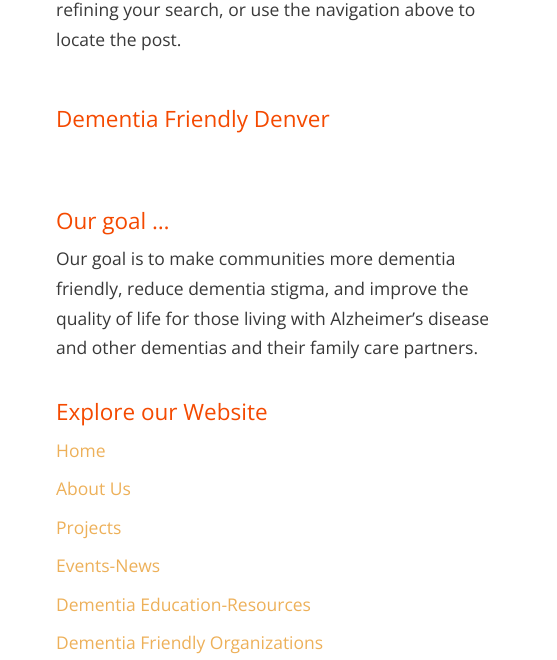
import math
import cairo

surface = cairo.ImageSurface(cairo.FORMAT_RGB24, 557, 660)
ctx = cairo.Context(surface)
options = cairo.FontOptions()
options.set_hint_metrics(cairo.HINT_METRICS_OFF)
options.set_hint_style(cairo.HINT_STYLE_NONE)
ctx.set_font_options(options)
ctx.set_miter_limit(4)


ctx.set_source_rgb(1, 1, 1)
ctx.paint()
ctx.select_font_face("Open Sans")
ctx.set_font_size(17.5)
ctx.set_source_rgb(0.22, 0.22, 0.22)
ctx.move_to(56, 16)
ctx.show_text("refining your search, or use the navigation above to")
ctx.move_to(56, 46)
ctx.show_text("locate the post.")
ctx.set_font_size(22.5)
ctx.set_source_rgb(0.957, 0.286, 0)
ctx.move_to(56, 127)
ctx.show_text("Dementia Friendly Denver")
ctx.move_to(56, 229)
ctx.show_text("Our goal …")
ctx.set_font_size(17.5)
ctx.set_source_rgb(0.22, 0.22, 0.22)
ctx.move_to(56, 265)
ctx.show_text("Our goal is to make communities more dementia")
ctx.move_to(56, 295)
ctx.show_text("friendly, reduce dementia stigma, and improve the")
ctx.move_to(56, 325)
ctx.show_text("quality of life for those living with Alzheimer’s disease")
ctx.move_to(56, 354)
ctx.show_text("and other dementias and their family care partners.")
ctx.set_font_size(22.5)
ctx.set_source_rgb(0.957, 0.286, 0)
ctx.move_to(56, 420)
ctx.show_text("Explore our Website")
ctx.set_font_size(17.5)
ctx.set_source_rgb(0.929, 0.69, 0.349)
ctx.move_to(56, 457)
ctx.show_text("Home")
ctx.move_to(56, 495)
ctx.show_text("About Us")
ctx.move_to(56, 534)
ctx.show_text("Projects")
ctx.move_to(56, 572)
ctx.show_text("Events-News")
ctx.move_to(56, 611)
ctx.show_text("Dementia Education-Resources")
ctx.move_to(56, 649)
ctx.show_text("Dementia Friendly Organizations")
surface.write_to_png("page.png")
